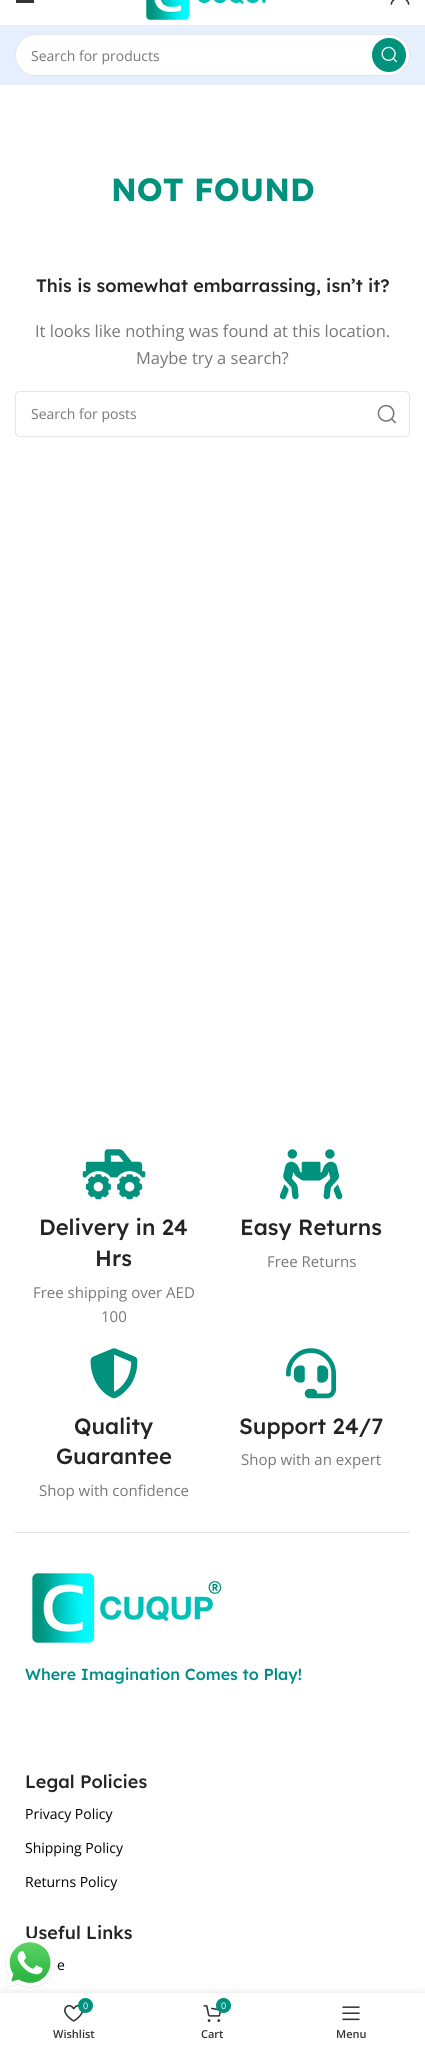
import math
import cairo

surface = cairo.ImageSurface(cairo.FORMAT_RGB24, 425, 2048)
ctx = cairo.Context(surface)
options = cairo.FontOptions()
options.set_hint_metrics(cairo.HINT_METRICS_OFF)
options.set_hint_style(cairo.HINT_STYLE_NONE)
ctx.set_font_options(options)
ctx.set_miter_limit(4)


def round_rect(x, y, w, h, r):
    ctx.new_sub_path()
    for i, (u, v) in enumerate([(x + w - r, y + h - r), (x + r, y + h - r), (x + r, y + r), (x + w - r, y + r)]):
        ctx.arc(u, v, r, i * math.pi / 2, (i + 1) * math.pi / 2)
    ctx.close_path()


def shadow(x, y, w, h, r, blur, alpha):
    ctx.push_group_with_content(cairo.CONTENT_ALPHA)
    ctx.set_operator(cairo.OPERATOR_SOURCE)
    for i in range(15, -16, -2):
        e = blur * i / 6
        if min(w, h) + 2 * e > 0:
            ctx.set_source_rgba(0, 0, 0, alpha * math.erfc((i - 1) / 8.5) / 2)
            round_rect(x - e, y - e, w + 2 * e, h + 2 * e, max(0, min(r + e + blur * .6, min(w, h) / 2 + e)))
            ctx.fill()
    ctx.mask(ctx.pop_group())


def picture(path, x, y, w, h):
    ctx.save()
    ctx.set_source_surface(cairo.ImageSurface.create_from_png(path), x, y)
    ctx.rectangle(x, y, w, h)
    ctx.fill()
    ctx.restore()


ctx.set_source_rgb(1, 1, 1)
ctx.paint()
ctx.set_source_rgb(0.2, 0.2, 0.2)
ctx.rectangle(16, 0, 18, 3)
ctx.fill()
picture("img1.png", 146, 0, 120, 20)
picture("img2.png", 390, 0, 20, 5)
ctx.set_source_rgb(0.902, 0.937, 0.992)
ctx.rectangle(0, 25, 425, 60)
ctx.fill()
ctx.set_source_rgb(1, 1, 1)
round_rect(15, 34, 395, 42, 21)
ctx.fill()
round_rect(15.5, 34.5, 394, 41, 20.5)
ctx.set_source_rgba(0, 0, 0, 0.1)
ctx.set_line_width(1)
ctx.stroke()
ctx.select_font_face("Open Sans")
ctx.set_font_size(14)
ctx.set_source_rgb(0.467, 0.467, 0.467)
ctx.move_to(31, 61)
ctx.show_text("Search for products")
ctx.set_source_rgb(0, 0.573, 0.49)
ctx.new_path()
ctx.arc(389, 55, 17, 0, 2 * math.pi)
ctx.fill()
picture("img3.png", 381, 46, 16, 17)
ctx.select_font_face("Lexend Deca", cairo.FONT_SLANT_NORMAL, cairo.FONT_WEIGHT_BOLD)
ctx.set_font_size(32)
ctx.move_to(111, 201)
ctx.show_text("NOT FOUND")
ctx.select_font_face("Lexend Deca Medium")
ctx.set_font_size(18)
ctx.set_source_rgb(0.141, 0.141, 0.141)
ctx.move_to(36, 292)
ctx.show_text("This is somewhat embarrassing, isn’t it?")
ctx.select_font_face("Open Sans")
ctx.set_font_size(16.5)
ctx.set_source_rgb(0.467, 0.467, 0.467)
ctx.move_to(35, 337)
ctx.show_text("It looks like nothing was found at this location.")
ctx.move_to(136, 364)
ctx.show_text("Maybe try a search?")
round_rect(15.5, 391.5, 394, 45, 4.5)
ctx.set_source_rgb(0.902, 0.902, 0.902)
ctx.stroke()
ctx.set_font_size(14)
ctx.set_source_rgb(0.467, 0.467, 0.467)
ctx.move_to(31, 419)
ctx.show_text("Search for posts")
picture("img4.png", 377, 404, 19, 20)
ctx.set_source_rgb(0.894, 0.894, 0.894)
ctx.rectangle(15, 1532, 395, 1)
ctx.fill()
picture("img5.png", 82, 1149, 64, 51)
ctx.select_font_face("Lexend Deca Medium")
ctx.set_font_size(22)
ctx.set_source_rgb(0.141, 0.141, 0.141)
ctx.move_to(39, 1235)
ctx.show_text("Delivery in 24")
ctx.move_to(95, 1266)
ctx.show_text("Hrs")
ctx.select_font_face("Open Sans")
ctx.set_font_size(15)
ctx.set_source_rgb(0.467, 0.467, 0.467)
ctx.move_to(33, 1298)
ctx.show_text("Free shipping over AED")
ctx.move_to(101, 1322)
ctx.show_text("100")
picture("img6.png", 279, 1149, 64, 51)
ctx.select_font_face("Lexend Deca Medium")
ctx.set_font_size(22)
ctx.set_source_rgb(0.141, 0.141, 0.141)
ctx.move_to(240, 1235)
ctx.show_text("Easy Returns")
ctx.select_font_face("Open Sans")
ctx.set_font_size(15)
ctx.set_source_rgb(0.467, 0.467, 0.467)
ctx.move_to(267, 1267)
ctx.show_text("Free Returns")
picture("img7.png", 90, 1348, 48, 51)
ctx.select_font_face("Lexend Deca Medium")
ctx.set_font_size(22)
ctx.set_source_rgb(0.141, 0.141, 0.141)
ctx.move_to(74, 1434)
ctx.show_text("Quality")
ctx.move_to(56, 1464)
ctx.show_text("Guarantee")
ctx.select_font_face("Open Sans")
ctx.set_font_size(15)
ctx.set_source_rgb(0.467, 0.467, 0.467)
ctx.move_to(39, 1496)
ctx.show_text("Shop with confidence")
picture("img8.png", 286, 1348, 50, 51)
ctx.select_font_face("Lexend Deca Medium")
ctx.set_font_size(22)
ctx.set_source_rgb(0.141, 0.141, 0.141)
ctx.move_to(239, 1434)
ctx.show_text("Support 24/7")
ctx.select_font_face("Open Sans")
ctx.set_font_size(15)
ctx.set_source_rgb(0.467, 0.467, 0.467)
ctx.move_to(241, 1465)
ctx.show_text("Shop with an expert")
picture("img9.png", 32, 1573, 190, 70)
ctx.select_font_face("Lexend Deca Medium")
ctx.set_font_size(16)
ctx.set_source_rgb(0.004, 0.553, 0.529)
ctx.move_to(25, 1680)
ctx.show_text("Where Imagination Comes to Play!")
ctx.set_font_size(18)
ctx.set_source_rgb(0.141, 0.141, 0.141)
ctx.move_to(25, 1788)
ctx.show_text("Legal Policies")
ctx.select_font_face("Open Sans")
ctx.set_font_size(14)
ctx.set_source_rgb(0, 0, 0)
ctx.move_to(25, 1819)
ctx.show_text("Privacy Policy")
ctx.move_to(25, 1853)
ctx.show_text("Shipping Policy")
ctx.move_to(25, 1887)
ctx.show_text("Returns Policy")
ctx.select_font_face("Lexend Deca Medium")
ctx.set_font_size(18)
ctx.set_source_rgb(0.141, 0.141, 0.141)
ctx.move_to(25, 1939)
ctx.show_text("Useful Links")
ctx.select_font_face("Open Sans")
ctx.set_font_size(14)
ctx.set_source_rgb(0, 0, 0)
ctx.move_to(57, 1970)
ctx.show_text("e")
ctx.set_source_rgb(0, 0, 0)
shadow(0, 1993, 425, 55, 0, 4.5, 0.12)
picture("img10.png", 5, 1938, 50, 50)
ctx.set_source_rgb(1, 1, 1)
ctx.rectangle(0, 1993, 425, 55)
ctx.fill()
picture("img11.png", 64, 2004, 20, 18)
ctx.set_source_rgb(0, 0.573, 0.49)
ctx.arc(85.5, 2005.5, 7.5, 0, 2 * math.pi)
ctx.fill()
ctx.set_font_size(9)
ctx.set_source_rgb(1, 1, 1)
ctx.move_to(83, 2009)
ctx.show_text("0")
ctx.select_font_face("Open Sans SemiBold")
ctx.set_font_size(11)
ctx.set_source_rgb(0.2, 0.2, 0.2)
ctx.move_to(53, 2038)
ctx.show_text("Wishlist")
picture("img12.png", 203, 2005, 19, 17)
ctx.set_source_rgb(0, 0.573, 0.49)
ctx.arc(223.5, 2005.5, 7.5, 0, 2 * math.pi)
ctx.fill()
ctx.select_font_face("Open Sans")
ctx.set_font_size(9)
ctx.set_source_rgb(1, 1, 1)
ctx.move_to(221, 2009)
ctx.show_text("0")
ctx.select_font_face("Open Sans SemiBold")
ctx.set_font_size(11)
ctx.set_source_rgb(0.2, 0.2, 0.2)
ctx.move_to(201, 2038)
ctx.show_text("Cart")
picture("img13.png", 342, 2006, 18, 15)
ctx.move_to(336, 2038)
ctx.show_text("Menu")
surface.write_to_png("page.png")
